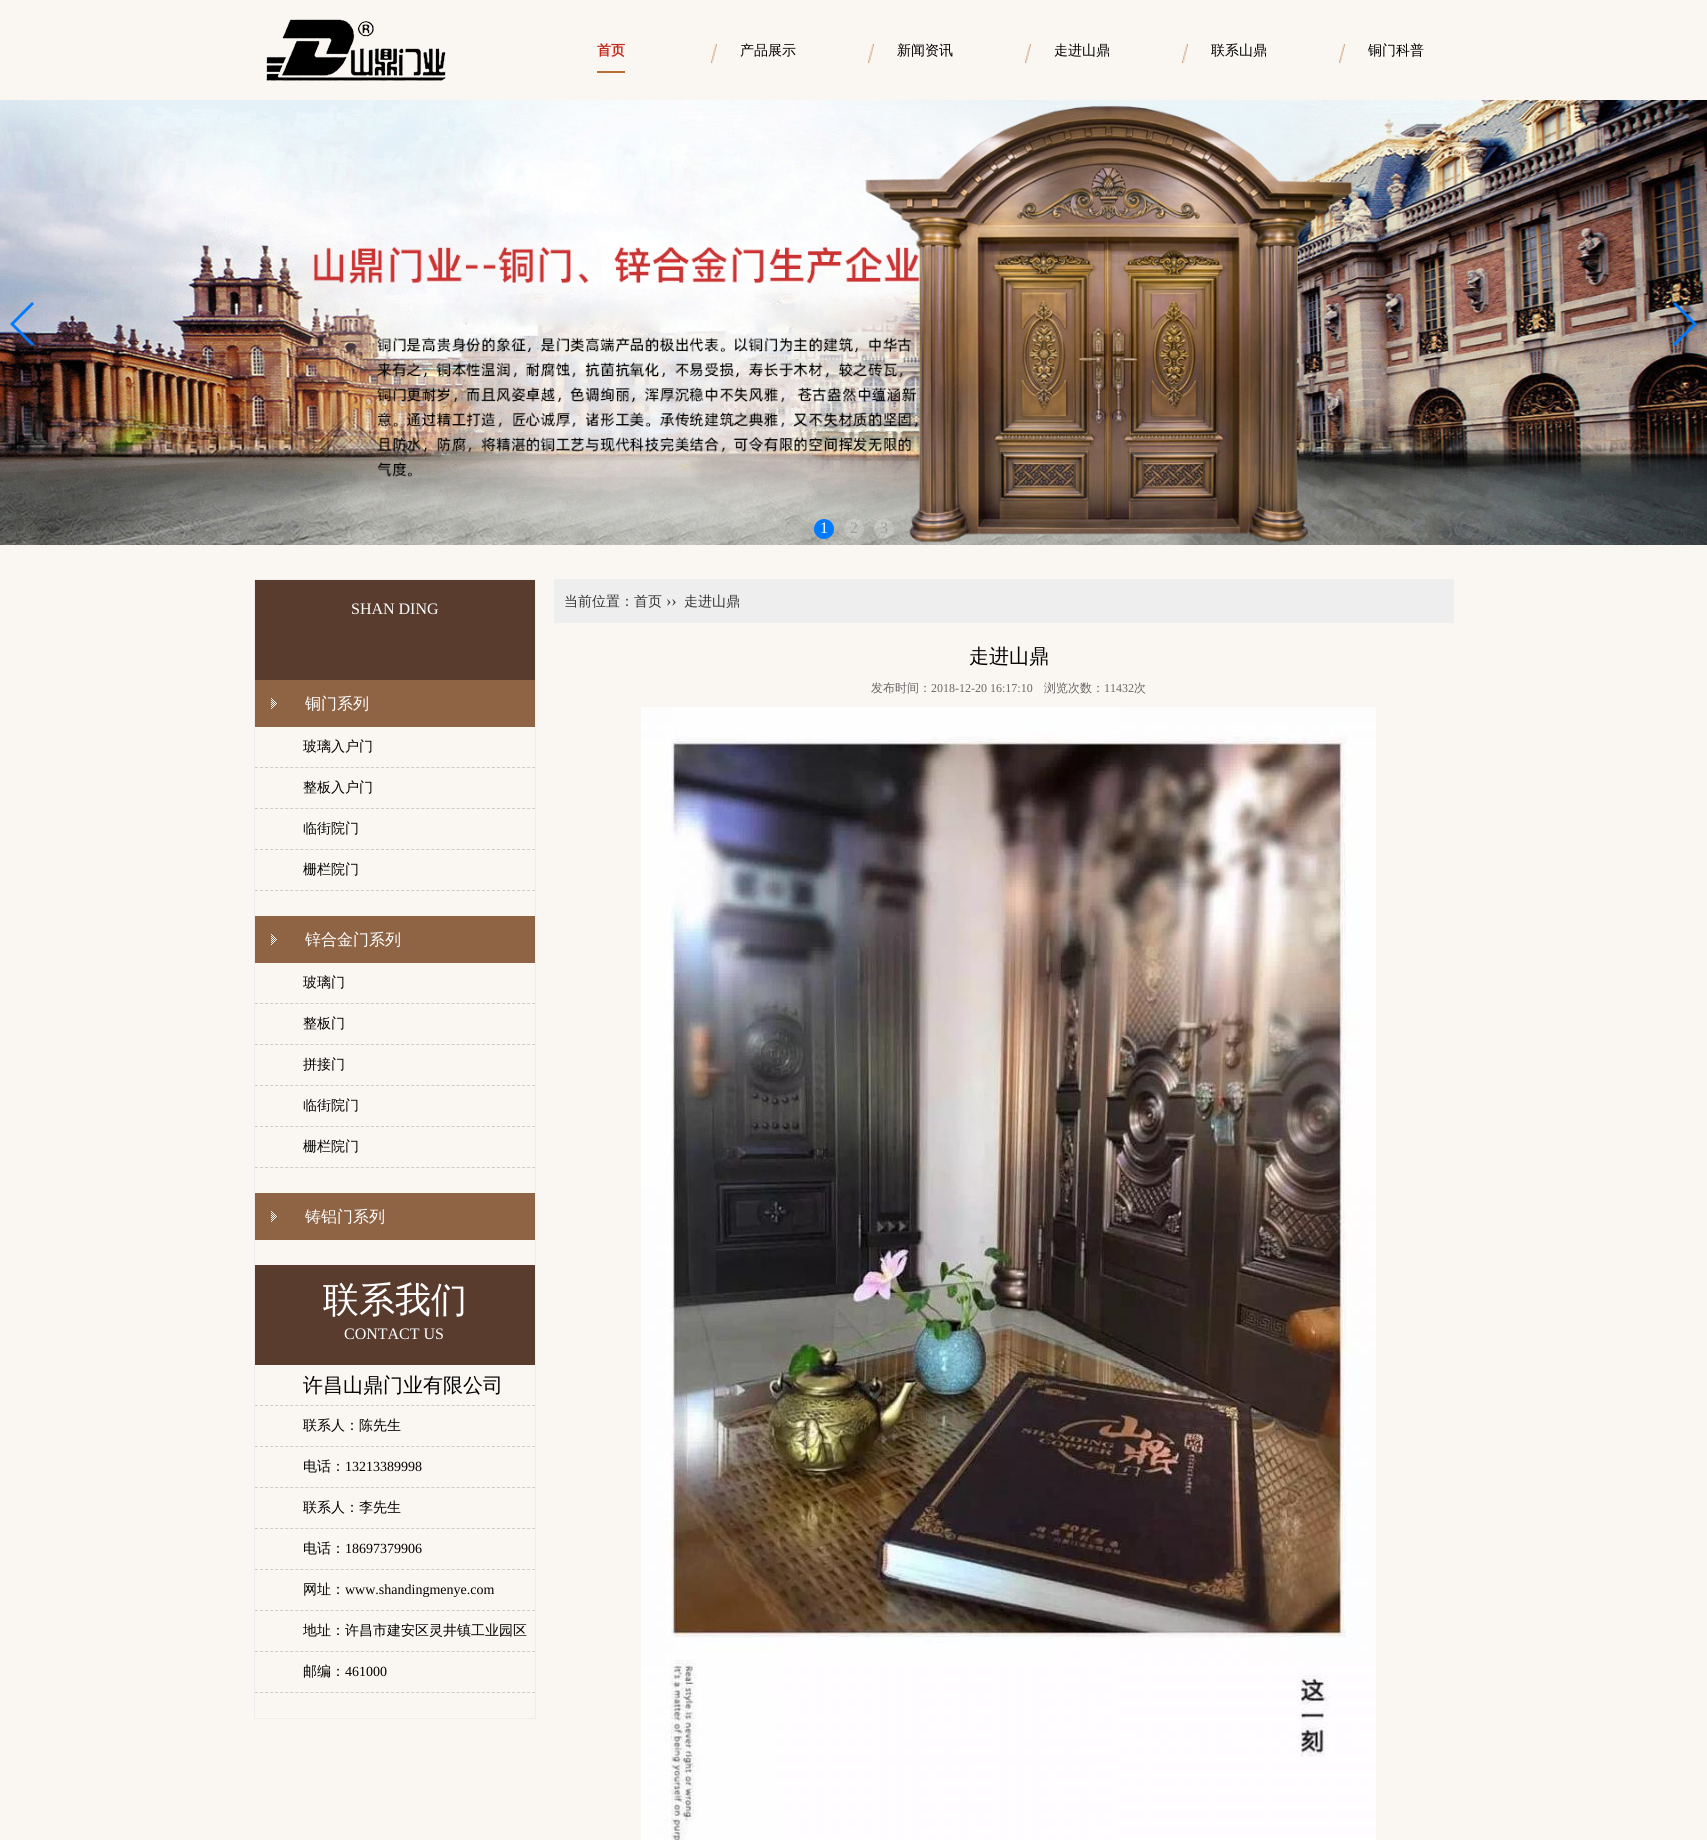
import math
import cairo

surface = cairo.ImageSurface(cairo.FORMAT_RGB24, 1707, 1840)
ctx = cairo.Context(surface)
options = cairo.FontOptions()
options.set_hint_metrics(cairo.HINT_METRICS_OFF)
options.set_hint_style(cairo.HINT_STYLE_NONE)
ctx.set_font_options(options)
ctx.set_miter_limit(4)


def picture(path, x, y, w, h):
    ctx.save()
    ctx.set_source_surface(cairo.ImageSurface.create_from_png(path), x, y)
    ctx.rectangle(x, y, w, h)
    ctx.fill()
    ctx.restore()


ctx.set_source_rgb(0.98, 0.965, 0.953)
ctx.paint()
picture("img1.png", 266, 19, 180, 62)
ctx.set_source_rgb(0.729, 0.427, 0.208)
ctx.rectangle(597, 71, 28, 2)
ctx.fill()
ctx.select_font_face("WenQuanYi Zen Hei", cairo.FONT_SLANT_NORMAL, cairo.FONT_WEIGHT_BOLD)
ctx.set_font_size(14)
ctx.set_source_rgb(0.765, 0.157, 0.106)
ctx.move_to(597, 55)
ctx.show_text("首页")
picture("img2.png", 711, 44, 6, 19)
ctx.select_font_face("WenQuanYi Zen Hei Medium")
ctx.set_source_rgb(0, 0, 0)
ctx.move_to(740, 55)
ctx.show_text("产品展示")
picture("img2.png", 868, 44, 6, 19)
ctx.move_to(897, 55)
ctx.show_text("新闻资讯")
picture("img3.png", 1025, 44, 6, 19)
ctx.move_to(1054, 55)
ctx.show_text("走进山鼎")
picture("img2.png", 1182, 44, 6, 19)
ctx.move_to(1211, 55)
ctx.show_text("联系山鼎")
picture("img3.png", 1339, 44, 6, 19)
ctx.move_to(1368, 55)
ctx.show_text("铜门科普")
picture("img4.png", 0, 100, 1707, 445)
ctx.set_source_rgb(0, 0.478, 1)
ctx.new_path()
ctx.move_to(10, 324)
ctx.line_to(32, 302)
ctx.line_to(34, 304)
ctx.line_to(14, 324)
ctx.line_to(34, 344)
ctx.line_to(32, 346)
ctx.close_path()
ctx.fill()
ctx.new_path()
ctx.move_to(1697, 324)
ctx.line_to(1675, 346)
ctx.line_to(1673, 344)
ctx.line_to(1693, 324)
ctx.line_to(1673, 304)
ctx.line_to(1675, 302)
ctx.close_path()
ctx.fill()
ctx.arc(824, 529, 10, 0, 2 * math.pi)
ctx.fill()
ctx.select_font_face("Liberation Serif")
ctx.set_font_size(16)
ctx.set_source_rgb(1, 1, 1)
ctx.move_to(820, 533)
ctx.show_text("1")
ctx.set_source_rgba(1, 1, 1, 0.2)
ctx.new_path()
ctx.arc(854, 529, 10, 0, 2 * math.pi)
ctx.fill()
ctx.set_source_rgb(0.616, 0.62, 0.604)
ctx.move_to(850, 533)
ctx.show_text("2")
ctx.set_source_rgba(1, 1, 1, 0.2)
ctx.new_path()
ctx.arc(884, 529, 10, 0, 2 * math.pi)
ctx.fill()
ctx.set_source_rgb(0.616, 0.62, 0.604)
ctx.move_to(880, 533)
ctx.show_text("3")
ctx.rectangle(254.5, 579.5, 281, 1139)
ctx.set_source_rgb(0.929, 0.929, 0.929)
ctx.set_line_width(1)
ctx.stroke()
ctx.set_source_rgb(0.349, 0.235, 0.18)
ctx.rectangle(255, 580, 280, 100)
ctx.fill()
ctx.set_source_rgb(1, 1, 1)
ctx.move_to(351, 614)
ctx.show_text("SHAN DING")
ctx.set_source_rgb(0.561, 0.392, 0.267)
ctx.rectangle(255, 680, 280, 47)
ctx.fill()
picture("img5.png", 271, 698, 6, 11)
ctx.select_font_face("WenQuanYi Zen Hei Medium")
ctx.set_source_rgb(1, 1, 1)
ctx.move_to(305, 709)
ctx.show_text("铜门系列")
ctx.new_path()
ctx.move_to(255, 767.5)
ctx.line_to(535, 767.5)
ctx.set_source_rgb(0.8, 0.8, 0.8)
ctx.set_dash([3, 2.04])
ctx.stroke()
ctx.set_font_size(14)
ctx.set_source_rgb(0, 0, 0)
ctx.move_to(303, 751)
ctx.show_text("玻璃入户门")
ctx.new_path()
ctx.move_to(255, 808.5)
ctx.line_to(535, 808.5)
ctx.set_source_rgb(0.8, 0.8, 0.8)
ctx.stroke()
ctx.set_source_rgb(0, 0, 0)
ctx.move_to(303, 792)
ctx.show_text("整板入户门")
ctx.new_path()
ctx.move_to(255, 849.5)
ctx.line_to(535, 849.5)
ctx.set_source_rgb(0.8, 0.8, 0.8)
ctx.stroke()
ctx.set_source_rgb(0, 0, 0)
ctx.move_to(303, 833)
ctx.show_text("临街院门")
ctx.new_path()
ctx.move_to(255, 890.5)
ctx.line_to(535, 890.5)
ctx.set_source_rgb(0.8, 0.8, 0.8)
ctx.stroke()
ctx.set_source_rgb(0, 0, 0)
ctx.move_to(303, 874)
ctx.show_text("栅栏院门")
ctx.set_source_rgb(0.561, 0.392, 0.267)
ctx.rectangle(255, 916, 280, 47)
ctx.fill()
picture("img5.png", 271, 934, 6, 11)
ctx.set_font_size(16)
ctx.set_source_rgb(1, 1, 1)
ctx.move_to(305, 945)
ctx.show_text("锌合金门系列")
ctx.new_path()
ctx.move_to(255, 1003.5)
ctx.line_to(535, 1003.5)
ctx.set_source_rgb(0.8, 0.8, 0.8)
ctx.stroke()
ctx.set_font_size(14)
ctx.set_source_rgb(0, 0, 0)
ctx.move_to(303, 987)
ctx.show_text("玻璃门")
ctx.new_path()
ctx.move_to(255, 1044.5)
ctx.line_to(535, 1044.5)
ctx.set_source_rgb(0.8, 0.8, 0.8)
ctx.stroke()
ctx.set_source_rgb(0, 0, 0)
ctx.move_to(303, 1028)
ctx.show_text("整板门")
ctx.new_path()
ctx.move_to(255, 1085.5)
ctx.line_to(535, 1085.5)
ctx.set_source_rgb(0.8, 0.8, 0.8)
ctx.stroke()
ctx.set_source_rgb(0, 0, 0)
ctx.move_to(303, 1069)
ctx.show_text("拼接门")
ctx.new_path()
ctx.move_to(255, 1126.5)
ctx.line_to(535, 1126.5)
ctx.set_source_rgb(0.8, 0.8, 0.8)
ctx.stroke()
ctx.set_source_rgb(0, 0, 0)
ctx.move_to(303, 1110)
ctx.show_text("临街院门")
ctx.new_path()
ctx.move_to(255, 1167.5)
ctx.line_to(535, 1167.5)
ctx.set_source_rgb(0.8, 0.8, 0.8)
ctx.stroke()
ctx.set_source_rgb(0, 0, 0)
ctx.move_to(303, 1151)
ctx.show_text("栅栏院门")
ctx.set_source_rgb(0.561, 0.392, 0.267)
ctx.rectangle(255, 1193, 280, 47)
ctx.fill()
picture("img5.png", 271, 1211, 6, 11)
ctx.set_font_size(16)
ctx.set_source_rgb(1, 1, 1)
ctx.move_to(305, 1222)
ctx.show_text("铸铝门系列")
ctx.set_source_rgb(0.349, 0.235, 0.18)
ctx.rectangle(255, 1265, 280, 100)
ctx.fill()
ctx.set_font_size(36)
ctx.set_source_rgb(1, 1, 1)
ctx.move_to(323, 1312)
ctx.show_text("联系我们")
ctx.select_font_face("Liberation Serif")
ctx.set_font_size(16)
ctx.move_to(344, 1339)
ctx.show_text("CONTACT US")
ctx.new_path()
ctx.move_to(255, 1405.5)
ctx.line_to(535, 1405.5)
ctx.set_source_rgb(0.8, 0.8, 0.8)
ctx.stroke()
ctx.select_font_face("WenQuanYi Zen Hei Medium")
ctx.set_font_size(20)
ctx.set_source_rgb(0, 0, 0)
ctx.move_to(303, 1392)
ctx.show_text("许昌山鼎门业有限公司")
ctx.new_path()
ctx.move_to(255, 1446.5)
ctx.line_to(535, 1446.5)
ctx.set_source_rgb(0.8, 0.8, 0.8)
ctx.stroke()
ctx.set_font_size(14)
ctx.set_source_rgb(0, 0, 0)
ctx.move_to(303, 1430)
ctx.show_text("联系人：陈先生")
ctx.new_path()
ctx.move_to(255, 1487.5)
ctx.line_to(535, 1487.5)
ctx.set_source_rgb(0.8, 0.8, 0.8)
ctx.stroke()
ctx.set_source_rgb(0, 0, 0)
ctx.move_to(303, 1471)
ctx.show_text("电话：")
ctx.select_font_face("Liberation Serif")
ctx.move_to(345, 1471)
ctx.show_text("13213389998")
ctx.new_path()
ctx.move_to(255, 1528.5)
ctx.line_to(535, 1528.5)
ctx.set_source_rgb(0.8, 0.8, 0.8)
ctx.stroke()
ctx.select_font_face("WenQuanYi Zen Hei Medium")
ctx.set_source_rgb(0, 0, 0)
ctx.move_to(303, 1512)
ctx.show_text("联系人：李先生")
ctx.new_path()
ctx.move_to(255, 1569.5)
ctx.line_to(535, 1569.5)
ctx.set_source_rgb(0.8, 0.8, 0.8)
ctx.stroke()
ctx.set_source_rgb(0, 0, 0)
ctx.move_to(303, 1553)
ctx.show_text("电话：")
ctx.select_font_face("Liberation Serif")
ctx.move_to(345, 1553)
ctx.show_text("18697379906")
ctx.new_path()
ctx.move_to(255, 1610.5)
ctx.line_to(535, 1610.5)
ctx.set_source_rgb(0.8, 0.8, 0.8)
ctx.stroke()
ctx.select_font_face("WenQuanYi Zen Hei Medium")
ctx.set_source_rgb(0, 0, 0)
ctx.move_to(303, 1594)
ctx.show_text("网址：")
ctx.select_font_face("Liberation Serif")
ctx.move_to(345, 1594)
ctx.show_text("www.shandingmenye.com")
ctx.new_path()
ctx.move_to(255, 1651.5)
ctx.line_to(535, 1651.5)
ctx.set_source_rgb(0.8, 0.8, 0.8)
ctx.stroke()
ctx.select_font_face("WenQuanYi Zen Hei Medium")
ctx.set_source_rgb(0, 0, 0)
ctx.move_to(303, 1635)
ctx.show_text("地址：许昌市建安区灵井镇工业园区")
ctx.new_path()
ctx.move_to(255, 1692.5)
ctx.line_to(535, 1692.5)
ctx.set_source_rgb(0.8, 0.8, 0.8)
ctx.stroke()
ctx.set_source_rgb(0, 0, 0)
ctx.move_to(303, 1676)
ctx.show_text("邮编：")
ctx.select_font_face("Liberation Serif")
ctx.move_to(345, 1676)
ctx.show_text("461000")
ctx.set_source_rgb(0.933, 0.933, 0.933)
ctx.rectangle(554, 579, 900, 44)
ctx.fill()
ctx.select_font_face("WenQuanYi Zen Hei Medium")
ctx.set_source_rgb(0.2, 0.2, 0.2)
ctx.move_to(564, 606)
ctx.show_text("当前位置：首页")
ctx.select_font_face("Liberation Serif")
ctx.set_font_size(16)
ctx.move_to(666, 606)
ctx.show_text("››")
ctx.select_font_face("WenQuanYi Zen Hei Medium")
ctx.set_font_size(14)
ctx.move_to(684, 606)
ctx.show_text("走进山鼎")
ctx.set_font_size(20)
ctx.set_source_rgb(0, 0, 0)
ctx.move_to(969, 663)
ctx.show_text("走进山鼎")
ctx.set_font_size(12)
ctx.set_source_rgb(0.4, 0.4, 0.4)
ctx.move_to(871, 692)
ctx.show_text("发布时间：")
ctx.select_font_face("Liberation Serif")
ctx.move_to(931, 692)
ctx.show_text("2018-12-20 16:17:10")
ctx.select_font_face("WenQuanYi Zen Hei Medium")
ctx.move_to(1044, 692)
ctx.show_text("浏览次数：")
ctx.select_font_face("Liberation Serif")
ctx.move_to(1104, 692)
ctx.show_text("11432")
ctx.select_font_face("WenQuanYi Zen Hei Medium")
ctx.move_to(1134, 692)
ctx.show_text("次")
picture("img6.png", 641, 707, 735, 1133)
surface.write_to_png("page.png")
